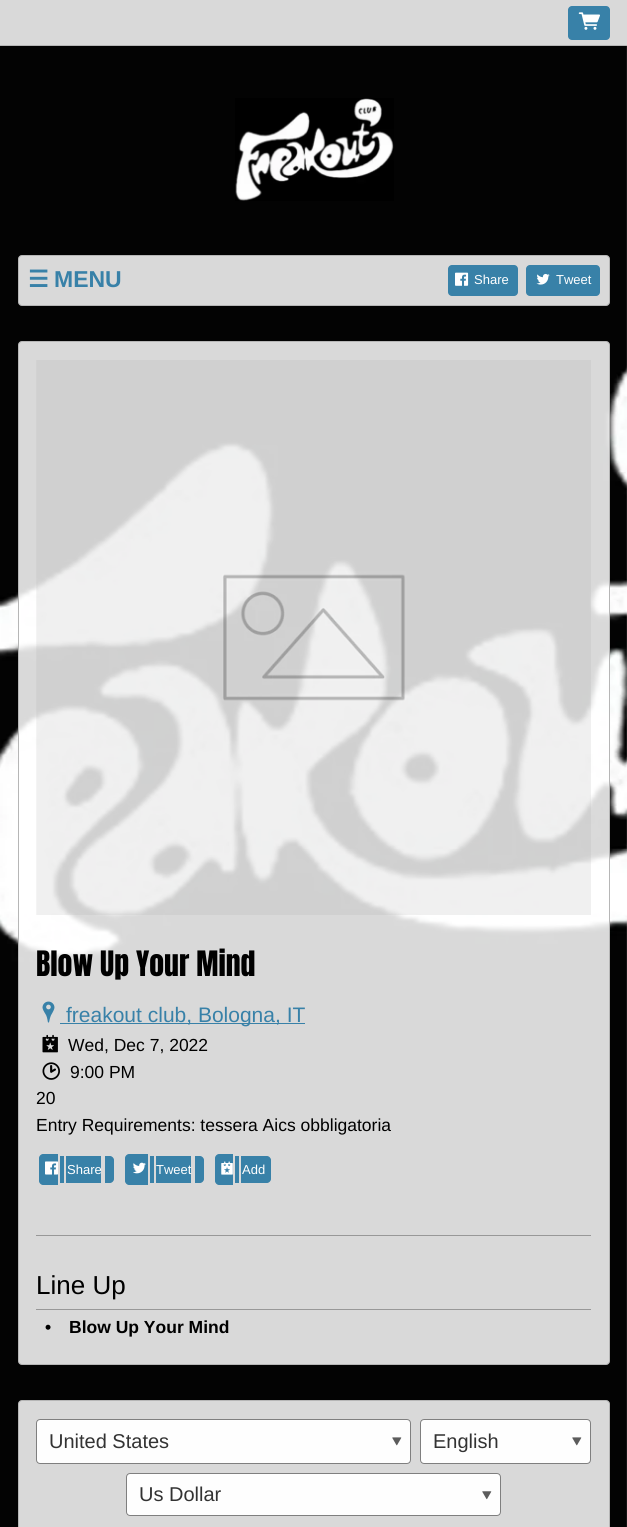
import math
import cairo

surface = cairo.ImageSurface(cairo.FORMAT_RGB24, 627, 1527)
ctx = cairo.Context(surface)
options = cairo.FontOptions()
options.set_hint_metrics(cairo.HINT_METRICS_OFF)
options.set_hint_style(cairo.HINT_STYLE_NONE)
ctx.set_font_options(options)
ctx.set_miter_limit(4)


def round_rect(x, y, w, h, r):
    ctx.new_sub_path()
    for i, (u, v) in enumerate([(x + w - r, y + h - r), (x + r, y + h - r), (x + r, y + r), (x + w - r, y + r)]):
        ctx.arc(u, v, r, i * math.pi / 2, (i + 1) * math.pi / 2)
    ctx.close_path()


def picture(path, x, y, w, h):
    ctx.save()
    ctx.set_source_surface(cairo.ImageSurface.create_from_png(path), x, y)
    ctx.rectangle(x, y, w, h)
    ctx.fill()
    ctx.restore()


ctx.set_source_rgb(1, 1, 1)
ctx.paint()
picture("img1.png", 0, 46, 627, 1481)
ctx.set_source_rgb(0.851, 0.851, 0.851)
ctx.rectangle(0, 0, 627, 45)
ctx.fill()
ctx.set_source_rgb(0.714, 0.714, 0.714)
ctx.rectangle(0, 45, 627, 1)
ctx.fill()
ctx.set_source_rgb(0.22, 0.506, 0.659)
round_rect(568, 6, 42, 34, 4)
ctx.fill()
picture("img2.png", 578, 12, 22, 18)
picture("img3.png", 235, 98, 159, 103)
ctx.set_source_rgb(0.851, 0.851, 0.851)
round_rect(18.5, 255.5, 591, 50, 3.5)
ctx.fill_preserve()
ctx.set_source_rgb(0.714, 0.714, 0.714)
ctx.set_line_width(1)
ctx.stroke()
ctx.select_font_face("DejaVu Sans", cairo.FONT_SLANT_NORMAL, cairo.FONT_WEIGHT_BOLD)
ctx.set_font_size(23)
ctx.set_source_rgb(0.22, 0.506, 0.659)
ctx.move_to(28, 287)
ctx.show_text("☰")
ctx.select_font_face("Liberation Sans", cairo.FONT_SLANT_NORMAL, cairo.FONT_WEIGHT_BOLD)
ctx.move_to(54, 287)
ctx.show_text("MENU")
round_rect(448, 265, 70, 31, 4)
ctx.fill()
picture("img4.png", 455, 272, 14, 14)
ctx.select_font_face("Liberation Sans")
ctx.set_font_size(13)
ctx.set_source_rgb(1, 1, 1)
ctx.move_to(474, 284)
ctx.show_text("Share")
ctx.set_source_rgb(0.22, 0.506, 0.659)
round_rect(526, 265, 74, 31, 4)
ctx.fill()
picture("img5.png", 536, 273, 14, 12)
ctx.set_source_rgb(1, 1, 1)
ctx.move_to(556, 284)
ctx.show_text("Tweet")
ctx.set_source_rgba(1, 1, 1, 0.85)
round_rect(18.5, 341.5, 591, 1023, 3.5)
ctx.fill_preserve()
ctx.set_source_rgb(0.714, 0.714, 0.714)
ctx.stroke()
picture("img6.png", 36, 360, 555, 555)
ctx.select_font_face("Anton")
ctx.set_font_size(29.75)
ctx.set_source_rgb(0, 0, 0)
ctx.move_to(36, 976)
ctx.show_text("Blow Up Your Mind")
picture("img7.png", 42, 1001, 13, 22)
ctx.set_source_rgb(0.22, 0.506, 0.659)
ctx.rectangle(60, 1023, 245, 1)
ctx.fill()
ctx.select_font_face("Liberation Sans")
ctx.set_font_size(21)
ctx.move_to(66, 1022)
ctx.show_text("freakout club, Bologna, IT")
picture("img8.png", 42, 1034, 16, 19)
ctx.set_font_size(17.5)
ctx.set_source_rgb(0, 0, 0)
ctx.move_to(68, 1051)
ctx.show_text("Wed, Dec 7, 2022")
picture("img9.png", 42, 1062, 18, 18)
ctx.move_to(70, 1078)
ctx.show_text("9:00 PM")
ctx.move_to(36, 1104)
ctx.show_text("20")
ctx.move_to(36, 1131)
ctx.show_text("Entry Requirements: tessera Aics obbligatoria")
ctx.set_source_rgb(0.22, 0.506, 0.659)
ctx.new_path()
ctx.move_to(43, 1154)
ctx.line_to(58, 1154)
ctx.line_to(58, 1185)
ctx.line_to(43, 1185)
ctx.curve_to(41, 1185, 39, 1183, 39, 1181)
ctx.line_to(39, 1158)
ctx.curve_to(39, 1156, 41, 1154, 43, 1154)
ctx.close_path()
ctx.fill()
ctx.rectangle(60, 1156, 4, 27)
ctx.fill()
ctx.rectangle(66, 1156, 35, 27)
ctx.fill()
ctx.new_path()
ctx.move_to(105, 1156)
ctx.line_to(110, 1156)
ctx.curve_to(112, 1156, 114, 1158, 114, 1160)
ctx.line_to(114, 1179)
ctx.curve_to(114, 1181, 112, 1183, 110, 1183)
ctx.line_to(105, 1183)
ctx.close_path()
ctx.fill()
picture("img10.png", 45, 1161, 13, 14)
ctx.set_font_size(13)
ctx.set_source_rgb(1, 1, 1)
ctx.move_to(67, 1174)
ctx.show_text("Share")
ctx.set_source_rgb(0.22, 0.506, 0.659)
ctx.new_path()
ctx.move_to(129, 1154)
ctx.line_to(148, 1154)
ctx.line_to(148, 1185)
ctx.line_to(129, 1185)
ctx.curve_to(127, 1185, 125, 1183, 125, 1181)
ctx.line_to(125, 1158)
ctx.curve_to(125, 1156, 127, 1154, 129, 1154)
ctx.close_path()
ctx.fill()
ctx.rectangle(150, 1156, 4, 27)
ctx.fill()
ctx.rectangle(156, 1156, 35, 27)
ctx.fill()
ctx.new_path()
ctx.move_to(195, 1156)
ctx.line_to(200, 1156)
ctx.curve_to(202, 1156, 204, 1158, 204, 1160)
ctx.line_to(204, 1179)
ctx.curve_to(204, 1181, 202, 1183, 200, 1183)
ctx.line_to(195, 1183)
ctx.close_path()
ctx.fill()
picture("img11.png", 133, 1162, 13, 12)
ctx.set_source_rgb(1, 1, 1)
ctx.move_to(156, 1174)
ctx.show_text("Tweet")
ctx.set_source_rgb(0.22, 0.506, 0.659)
ctx.new_path()
ctx.move_to(219, 1154)
ctx.line_to(233, 1154)
ctx.line_to(233, 1185)
ctx.line_to(219, 1185)
ctx.curve_to(217, 1185, 215, 1183, 215, 1181)
ctx.line_to(215, 1158)
ctx.curve_to(215, 1156, 217, 1154, 219, 1154)
ctx.close_path()
ctx.fill()
ctx.rectangle(235, 1156, 4, 27)
ctx.fill()
ctx.new_path()
ctx.move_to(241, 1156)
ctx.line_to(267, 1156)
ctx.curve_to(269, 1156, 271, 1158, 271, 1160)
ctx.line_to(271, 1179)
ctx.curve_to(271, 1181, 269, 1183, 267, 1183)
ctx.line_to(241, 1183)
ctx.close_path()
ctx.fill()
picture("img12.png", 221, 1161, 12, 14)
ctx.set_source_rgb(1, 1, 1)
ctx.move_to(242, 1174)
ctx.show_text("Add")
ctx.set_source_rgb(0.596, 0.596, 0.596)
ctx.rectangle(36, 1235, 555, 1)
ctx.fill()
ctx.set_font_size(26)
ctx.set_source_rgb(0, 0, 0)
ctx.move_to(36, 1294)
ctx.show_text("Line Up")
ctx.set_source_rgb(0.596, 0.596, 0.596)
ctx.rectangle(36, 1309, 555, 1)
ctx.fill()
ctx.select_font_face("Liberation Sans", cairo.FONT_SLANT_NORMAL, cairo.FONT_WEIGHT_BOLD)
ctx.set_font_size(17.5)
ctx.set_source_rgb(0, 0, 0)
ctx.move_to(45, 1333)
ctx.show_text("•")
ctx.move_to(69, 1333)
ctx.show_text("Blow Up Your Mind")
ctx.set_source_rgb(0.851, 0.851, 0.851)
round_rect(18.5, 1400.5, 591, 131, 3.5)
ctx.fill_preserve()
ctx.set_source_rgb(0.714, 0.714, 0.714)
ctx.stroke()
ctx.set_source_rgb(0.996, 0.996, 0.996)
round_rect(36, 1419, 375, 45, 4)
ctx.fill()
round_rect(36.5, 1419.5, 374, 44, 3.5)
ctx.set_source_rgba(0, 0, 0, 0.5)
ctx.stroke()
ctx.select_font_face("Liberation Sans")
ctx.set_font_size(20)
ctx.set_source_rgb(0.2, 0.2, 0.2)
ctx.move_to(49, 1448)
ctx.show_text("United States")
picture("img13.png", 392, 1437, 10, 9)
ctx.set_source_rgb(0.996, 0.996, 0.996)
round_rect(420, 1419, 171, 45, 4)
ctx.fill()
round_rect(420.5, 1419.5, 170, 44, 3.5)
ctx.set_source_rgba(0, 0, 0, 0.5)
ctx.stroke()
ctx.set_source_rgb(0.2, 0.2, 0.2)
ctx.move_to(433, 1448)
ctx.show_text("English")
picture("img13.png", 572, 1437, 10, 9)
ctx.set_source_rgb(0.996, 0.996, 0.996)
round_rect(126, 1473, 375, 43, 4)
ctx.fill()
round_rect(126.5, 1473.5, 374, 42, 3.5)
ctx.set_source_rgba(0, 0, 0, 0.5)
ctx.stroke()
ctx.set_source_rgb(0.2, 0.2, 0.2)
ctx.move_to(139, 1501)
ctx.show_text("Us Dollar")
picture("img14.png", 482, 1491, 10, 9)
surface.write_to_png("page.png")
